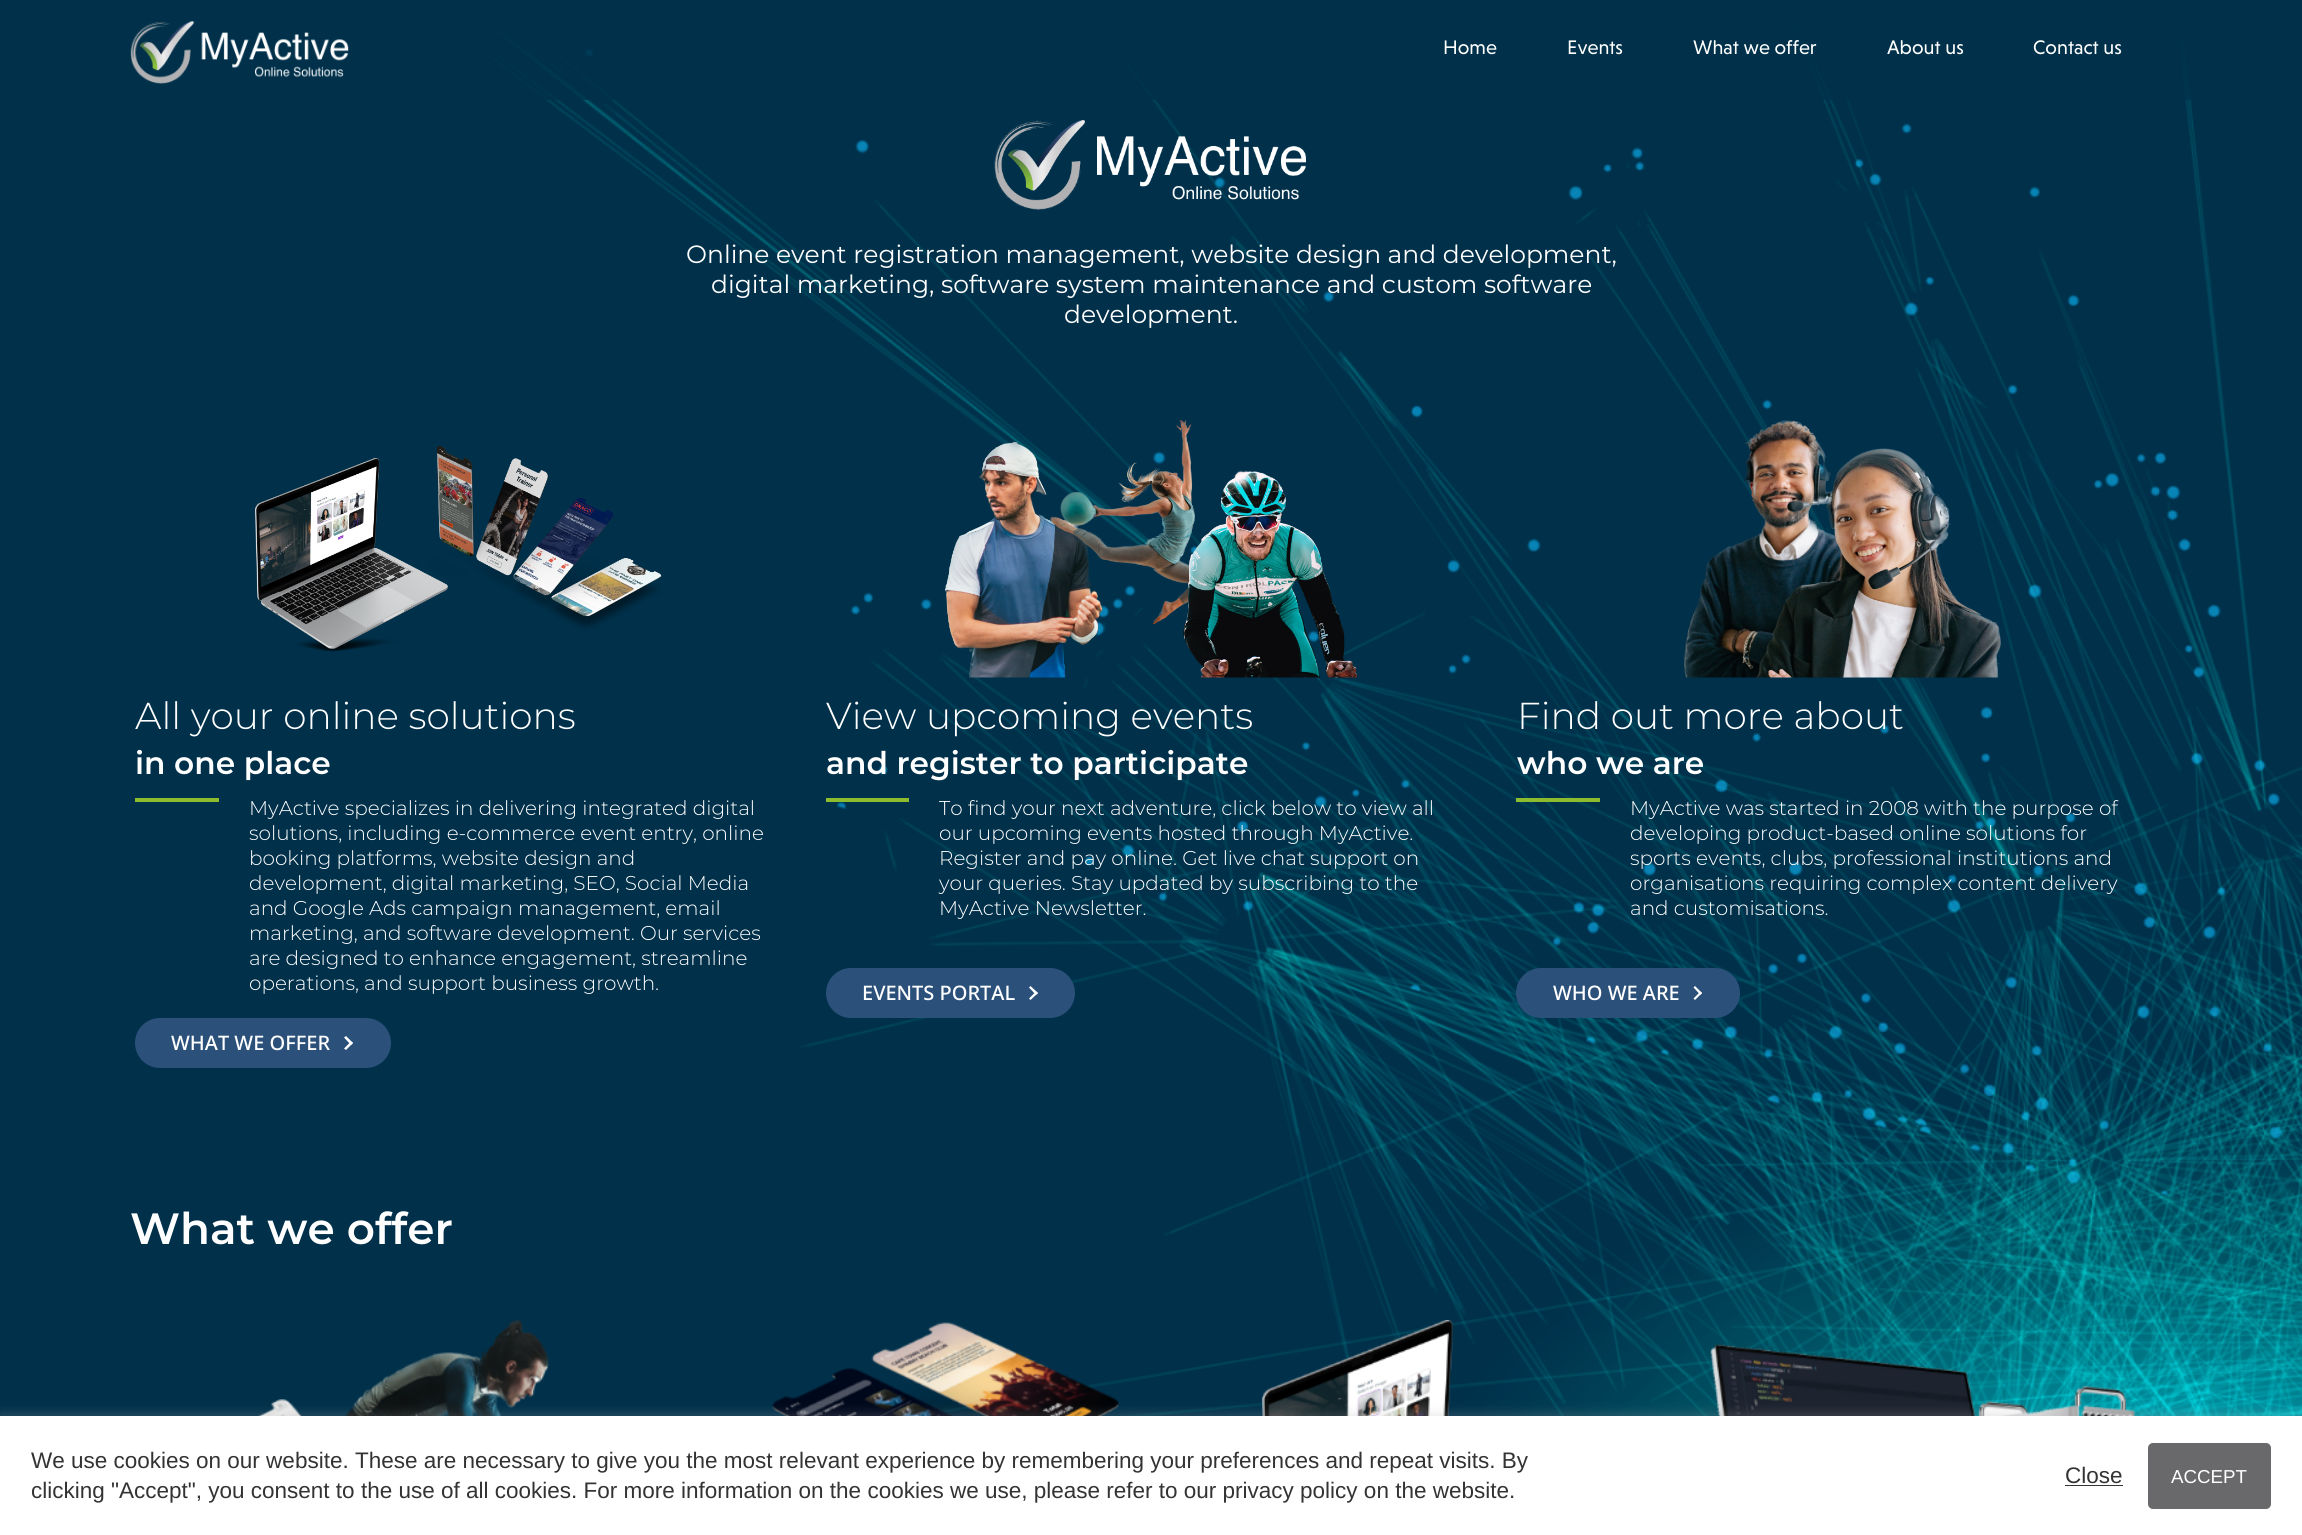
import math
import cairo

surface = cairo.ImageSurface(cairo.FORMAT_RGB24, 2302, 1535)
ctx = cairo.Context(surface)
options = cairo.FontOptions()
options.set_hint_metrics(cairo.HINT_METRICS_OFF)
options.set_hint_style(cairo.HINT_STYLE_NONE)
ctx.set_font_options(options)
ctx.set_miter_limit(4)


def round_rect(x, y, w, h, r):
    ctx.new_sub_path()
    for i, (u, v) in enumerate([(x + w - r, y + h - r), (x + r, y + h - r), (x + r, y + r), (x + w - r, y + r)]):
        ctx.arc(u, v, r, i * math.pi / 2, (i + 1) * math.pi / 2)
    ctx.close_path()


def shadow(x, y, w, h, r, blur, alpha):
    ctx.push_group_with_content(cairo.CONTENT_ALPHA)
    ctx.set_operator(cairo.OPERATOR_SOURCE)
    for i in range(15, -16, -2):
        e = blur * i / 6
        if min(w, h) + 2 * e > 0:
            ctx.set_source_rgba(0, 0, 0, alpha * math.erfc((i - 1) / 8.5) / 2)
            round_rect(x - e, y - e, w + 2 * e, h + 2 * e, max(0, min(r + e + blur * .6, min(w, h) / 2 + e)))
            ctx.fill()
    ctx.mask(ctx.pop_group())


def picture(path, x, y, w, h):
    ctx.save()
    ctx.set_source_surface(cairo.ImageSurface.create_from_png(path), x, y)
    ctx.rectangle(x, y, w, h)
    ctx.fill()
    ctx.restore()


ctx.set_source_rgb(1, 1, 1)
ctx.paint()
picture("img2.png", 0, 0, 2302, 1416)
picture("img1.png", 130, 21, 219, 63)
ctx.select_font_face("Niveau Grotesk")
ctx.set_font_size(20)
ctx.set_source_rgb(1, 1, 1)
ctx.move_to(1443, 54)
ctx.show_text("Home")
ctx.move_to(1567, 54)
ctx.show_text("Events")
ctx.move_to(1693, 54)
ctx.show_text("What we offer")
ctx.move_to(1887, 54)
ctx.show_text("About us")
ctx.move_to(2033, 54)
ctx.show_text("Contact us")
picture("img3.png", 993, 120, 313, 90)
ctx.select_font_face("Montserrat")
ctx.set_font_size(25)
ctx.move_to(686, 263)
ctx.show_text("Online event registration management, website design and development,")
ctx.move_to(711, 293)
ctx.show_text("digital marketing, software system maintenance and custom software")
ctx.move_to(1064, 323)
ctx.show_text("development.")
picture("img4.png", 255, 446, 407, 206)
ctx.select_font_face("Montserrat Light")
ctx.set_font_size(37.5)
ctx.move_to(135, 729)
ctx.show_text("All your online solutions")
ctx.select_font_face("Montserrat SemiBold")
ctx.set_font_size(31.25)
ctx.move_to(135, 774)
ctx.show_text("in one place")
ctx.set_source_rgb(0.553, 0.737, 0.18)
ctx.rectangle(135, 798, 84, 4)
ctx.fill()
ctx.select_font_face("Montserrat Light")
ctx.set_font_size(20)
ctx.set_source_rgb(1, 1, 1)
ctx.move_to(249, 815)
ctx.show_text("MyActive specializes in delivering integrated digital")
ctx.move_to(249, 840)
ctx.show_text("solutions, including e-commerce event entry, online")
ctx.move_to(249, 865)
ctx.show_text("booking platforms, website design and")
ctx.move_to(249, 890)
ctx.show_text("development, digital marketing, SEO, Social Media")
ctx.move_to(249, 915)
ctx.show_text("and Google Ads campaign management, email")
ctx.move_to(249, 940)
ctx.show_text("marketing, and software development. Our services")
ctx.move_to(249, 965)
ctx.show_text("are designed to enhance engagement, streamline")
ctx.move_to(249, 990)
ctx.show_text("operations, and support business growth.")
ctx.set_source_rgb(0.169, 0.318, 0.482)
round_rect(135, 1018, 256, 50, 25)
ctx.fill()
ctx.select_font_face("Noto Sans Medium")
ctx.set_source_rgb(1, 1, 1)
ctx.move_to(171, 1050)
ctx.show_text("WHAT WE OFFER")
ctx.new_path()
ctx.move_to(344, 1037.5)
ctx.line_to(346, 1036)
ctx.line_to(353, 1043)
ctx.line_to(351, 1045)
ctx.close_path()
ctx.fill()
ctx.new_path()
ctx.move_to(344, 1048.5)
ctx.line_to(351, 1041.5)
ctx.line_to(353, 1043)
ctx.line_to(346, 1050)
ctx.close_path()
ctx.fill()
picture("img5.png", 945, 420, 413, 258)
ctx.select_font_face("Montserrat Light")
ctx.set_font_size(37.5)
ctx.move_to(826, 729)
ctx.show_text("View upcoming events")
ctx.select_font_face("Montserrat SemiBold")
ctx.set_font_size(31.25)
ctx.move_to(826, 774)
ctx.show_text("and register to participate")
ctx.set_source_rgb(0.553, 0.737, 0.18)
ctx.rectangle(826, 798, 83, 4)
ctx.fill()
ctx.select_font_face("Montserrat Light")
ctx.set_font_size(20)
ctx.set_source_rgb(1, 1, 1)
ctx.move_to(939, 815)
ctx.show_text("To find your next adventure, click below to view all")
ctx.move_to(939, 840)
ctx.show_text("our upcoming events hosted through MyActive.")
ctx.move_to(939, 865)
ctx.show_text("Register and pay online. Get live chat support on")
ctx.move_to(939, 890)
ctx.show_text("your queries. Stay updated by subscribing to the")
ctx.move_to(939, 915)
ctx.show_text("MyActive Newsletter.")
ctx.set_source_rgb(0.169, 0.318, 0.482)
round_rect(826, 968, 249, 50, 25)
ctx.fill()
ctx.select_font_face("Noto Sans Medium")
ctx.set_source_rgb(1, 1, 1)
ctx.move_to(862, 1000)
ctx.show_text("EVENTS PORTAL")
ctx.new_path()
ctx.move_to(1029, 987.5)
ctx.line_to(1030.5, 986)
ctx.line_to(1038, 993)
ctx.line_to(1036, 995)
ctx.close_path()
ctx.fill()
ctx.new_path()
ctx.move_to(1029, 998.5)
ctx.line_to(1036, 991.5)
ctx.line_to(1038, 993)
ctx.line_to(1030.5, 1000)
ctx.close_path()
ctx.fill()
picture("img6.png", 1683, 420, 318, 258)
ctx.select_font_face("Montserrat Light")
ctx.set_font_size(37.5)
ctx.move_to(1517, 729)
ctx.show_text("Find out more about")
ctx.select_font_face("Montserrat SemiBold")
ctx.set_font_size(31.25)
ctx.move_to(1517, 774)
ctx.show_text("who we are")
ctx.set_source_rgb(0.553, 0.737, 0.18)
ctx.rectangle(1516, 798, 84, 4)
ctx.fill()
ctx.select_font_face("Montserrat Light")
ctx.set_font_size(20)
ctx.set_source_rgb(1, 1, 1)
ctx.move_to(1630, 815)
ctx.show_text("MyActive was started in 2008 with the purpose of")
ctx.move_to(1630, 840)
ctx.show_text("developing product-based online solutions for")
ctx.move_to(1630, 865)
ctx.show_text("sports events, clubs, professional institutions and")
ctx.move_to(1630, 890)
ctx.show_text("organisations requiring complex content delivery")
ctx.move_to(1630, 915)
ctx.show_text("and customisations.")
ctx.set_source_rgb(0.169, 0.318, 0.482)
round_rect(1516, 968, 224, 50, 25)
ctx.fill()
ctx.select_font_face("Noto Sans Medium")
ctx.set_source_rgb(1, 1, 1)
ctx.move_to(1553, 1000)
ctx.show_text("WHO WE ARE")
ctx.new_path()
ctx.move_to(1693.5, 987.5)
ctx.line_to(1695, 986)
ctx.line_to(1702, 993)
ctx.line_to(1700.5, 995)
ctx.close_path()
ctx.fill()
ctx.new_path()
ctx.move_to(1693.5, 998.5)
ctx.line_to(1700.5, 991.5)
ctx.line_to(1702, 993)
ctx.line_to(1695, 1000)
ctx.close_path()
ctx.fill()
ctx.select_font_face("Montserrat SemiBold")
ctx.set_font_size(43.75)
ctx.move_to(130, 1244)
ctx.show_text("What we offer")
picture("img7.png", 257, 1320, 293, 96)
picture("img8.png", 771, 1322, 348, 94)
picture("img9.png", 1262, 1320, 191, 96)
picture("img10.png", 1710, 1344, 426, 72)
ctx.set_source_rgb(0.675, 0.671, 0.671)
shadow(0, 1415, 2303, 119, 0, 6, 0.3)
ctx.set_source_rgb(1, 1, 1)
ctx.rectangle(0, 1416, 2302, 119)
ctx.fill()
ctx.select_font_face("Liberation Sans")
ctx.set_font_size(22.5)
ctx.set_source_rgb(0.2, 0.2, 0.2)
ctx.move_to(31, 1468)
ctx.show_text("We use cookies on our website. These are necessary to give you the most relevant experience by remembering your preferences and repeat visits. By")
ctx.move_to(31, 1498)
ctx.show_text("clicking \"Accept\", you consent to the use of all cookies. For more information on the cookies we use, please refer to our privacy policy on the website.")
ctx.move_to(2065, 1483)
ctx.show_text("Close")
ctx.rectangle(2065, 1485, 58, 1)
ctx.fill()
ctx.set_source_rgb(0.412, 0.412, 0.42)
round_rect(2148, 1443, 123, 66, 5)
ctx.fill()
ctx.set_font_size(18.75)
ctx.set_source_rgb(1, 1, 1)
ctx.move_to(2171, 1483)
ctx.show_text("ACCEPT")
surface.write_to_png("page.png")
